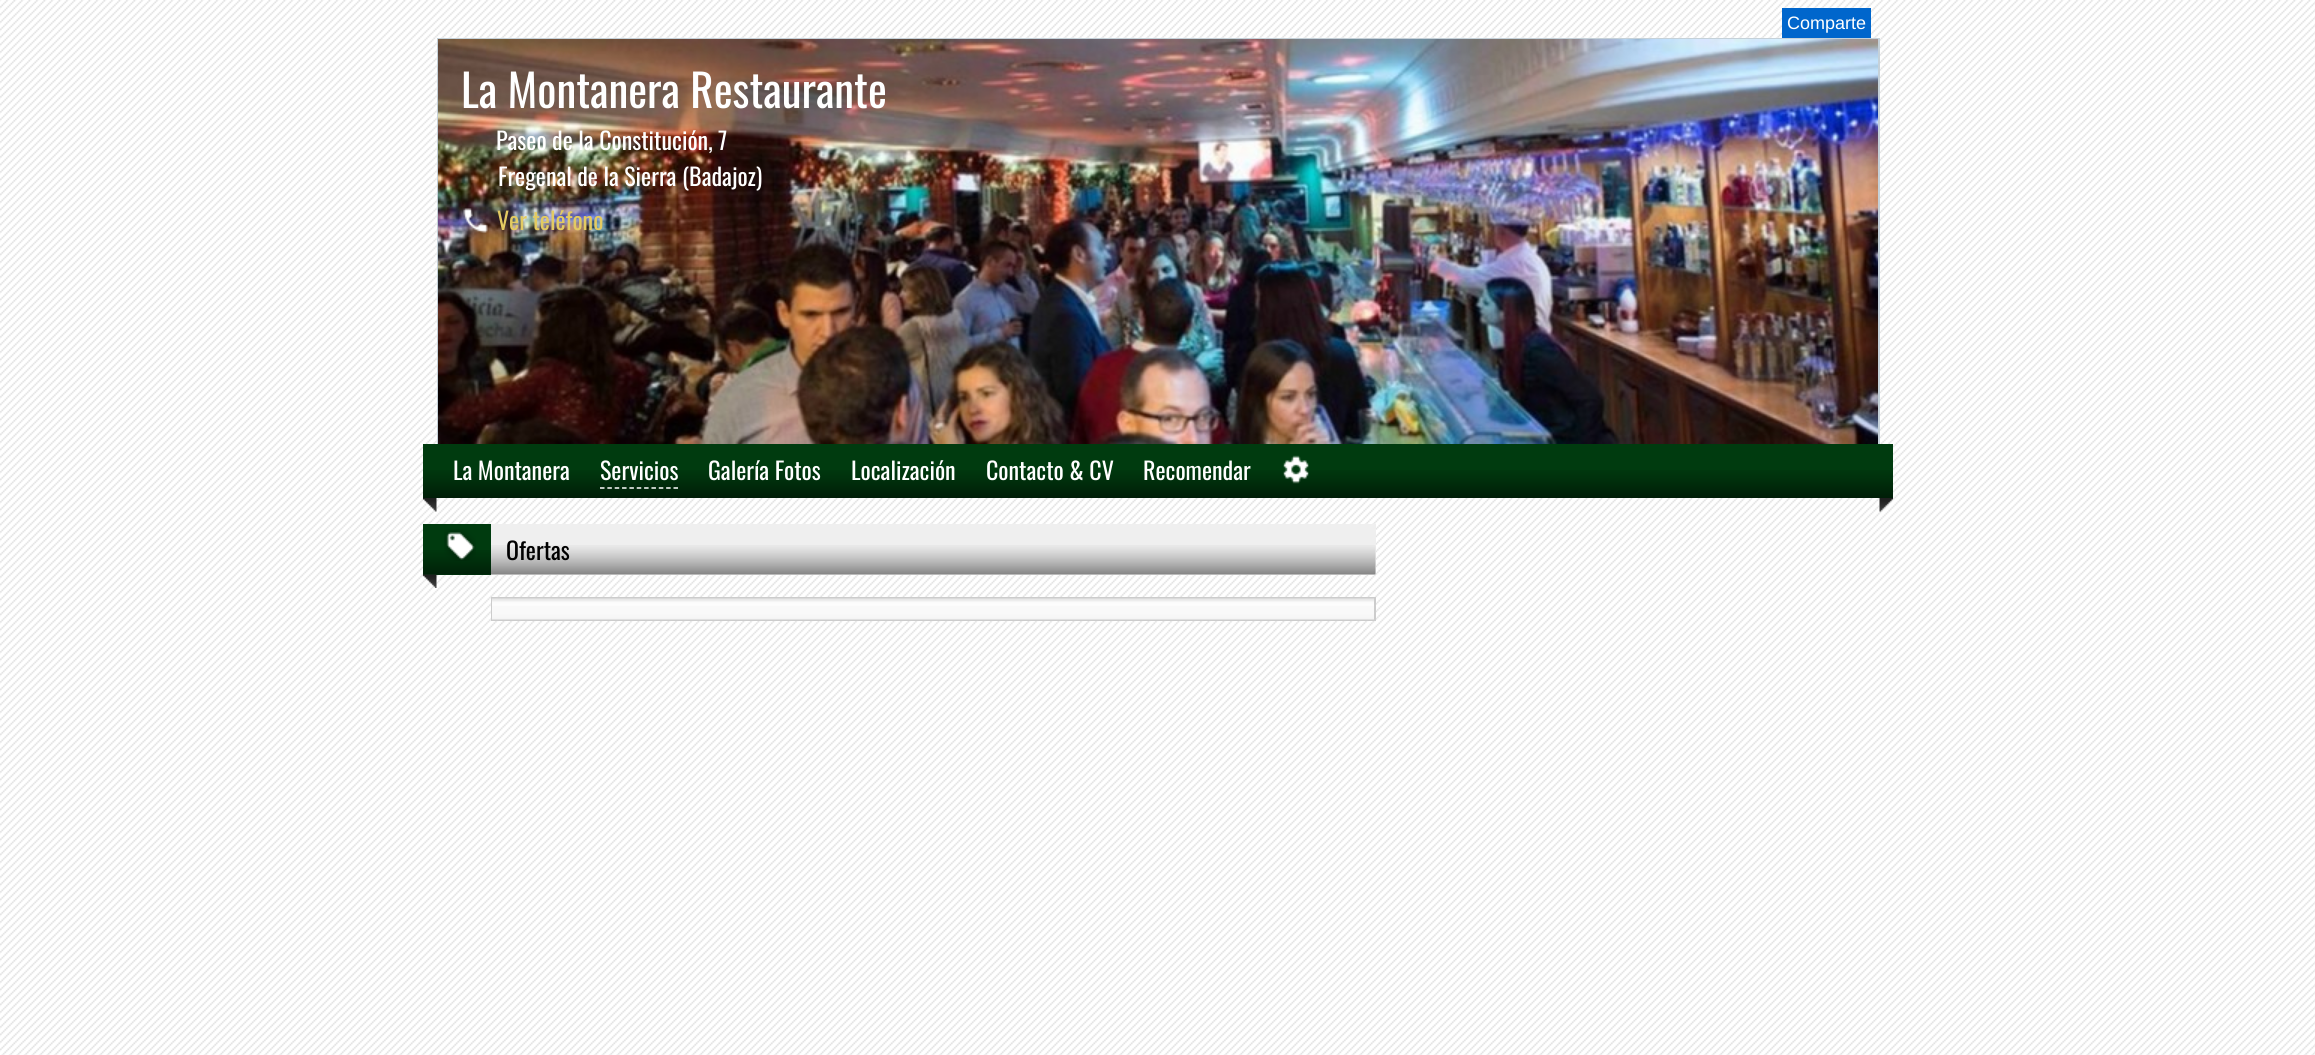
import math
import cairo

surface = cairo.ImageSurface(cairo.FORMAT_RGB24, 2315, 1055)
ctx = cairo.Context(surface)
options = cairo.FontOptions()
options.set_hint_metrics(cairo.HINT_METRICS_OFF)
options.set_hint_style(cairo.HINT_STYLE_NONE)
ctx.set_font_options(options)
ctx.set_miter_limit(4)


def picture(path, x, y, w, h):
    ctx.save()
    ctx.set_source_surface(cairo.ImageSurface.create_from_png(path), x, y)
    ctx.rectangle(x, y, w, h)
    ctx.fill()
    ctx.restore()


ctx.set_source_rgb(1, 1, 1)
ctx.paint()
picture("img1.png", 0, 0, 2315, 1055)
ctx.set_source_rgb(0, 0.4, 0.8)
ctx.rectangle(1782, 8, 89, 30)
ctx.fill()
ctx.select_font_face("Liberation Sans")
ctx.set_font_size(18)
ctx.set_source_rgb(1, 1, 1)
ctx.move_to(1787, 29)
ctx.show_text("Comparte")
ctx.set_source_rgb(0.773, 0.82, 0.851)
ctx.rectangle(437, 38, 1443, 1)
ctx.fill()
ctx.rectangle(1878, 38, 2, 406)
ctx.fill()
ctx.rectangle(437, 38, 2, 406)
ctx.fill()
picture("img2.png", 438, 39, 1440, 405)
ctx.select_font_face("Oswald")
ctx.set_font_size(45)
ctx.set_source_rgb(1, 1, 1)
ctx.move_to(461, 108)
ctx.show_text("La Montanera Restaurante")
ctx.set_font_size(24)
ctx.move_to(496, 150)
ctx.show_text("Paseo de la Constitución, 7")
ctx.move_to(498, 186)
ctx.show_text("Fregenal de la Sierra (Badajoz)")
picture("img3.png", 463, 208, 25, 25)
ctx.set_source_rgb(0.89, 0.796, 0.384)
ctx.move_to(497, 230)
ctx.show_text("Ver teléfono")
ctx.set_source_rgb(0, 0.231, 0.059)
ctx.rectangle(423, 444, 1470, 54)
ctx.fill()
picture("img4.png", 423, 470, 1470, 28)
ctx.set_source_rgb(1, 1, 1)
ctx.move_to(453, 480)
ctx.show_text("La Montanera")
ctx.move_to(600, 480)
ctx.show_text("Servicios")
ctx.new_path()
ctx.move_to(600, 488)
ctx.line_to(678, 488)
ctx.set_line_width(1.5)
ctx.set_dash([4.5, 2.85])
ctx.stroke()
ctx.move_to(708, 480)
ctx.show_text("Galería Fotos")
ctx.move_to(851, 480)
ctx.show_text("Localización")
ctx.move_to(986, 480)
ctx.show_text("Contacto & CV")
ctx.move_to(1143, 480)
ctx.show_text("Recomendar")
picture("img5.png", 1283, 455, 26, 29)
picture("img6.png", 423, 498, 14, 14)
picture("img7.png", 1879, 498, 14, 14)
ctx.set_source_rgb(0, 0.231, 0.059)
ctx.rectangle(423, 524, 68, 51)
ctx.fill()
picture("img8.png", 423, 550, 68, 25)
picture("img9.png", 444, 529, 32, 32)
picture("img10.png", 423, 574, 14, 14)
ctx.set_source_rgb(0.937, 0.937, 0.937)
ctx.rectangle(491, 524, 885, 51)
ctx.fill()
picture("img11.png", 490, 545, 886, 30)
ctx.set_source_rgb(0, 0, 0)
ctx.move_to(506, 560)
ctx.show_text("Ofertas")
ctx.set_source_rgb(0.8, 0.8, 0.8)
ctx.rectangle(491, 597, 885, 24)
ctx.fill()
picture("img12.png", 492, 598, 882, 22)
surface.write_to_png("page.png")
